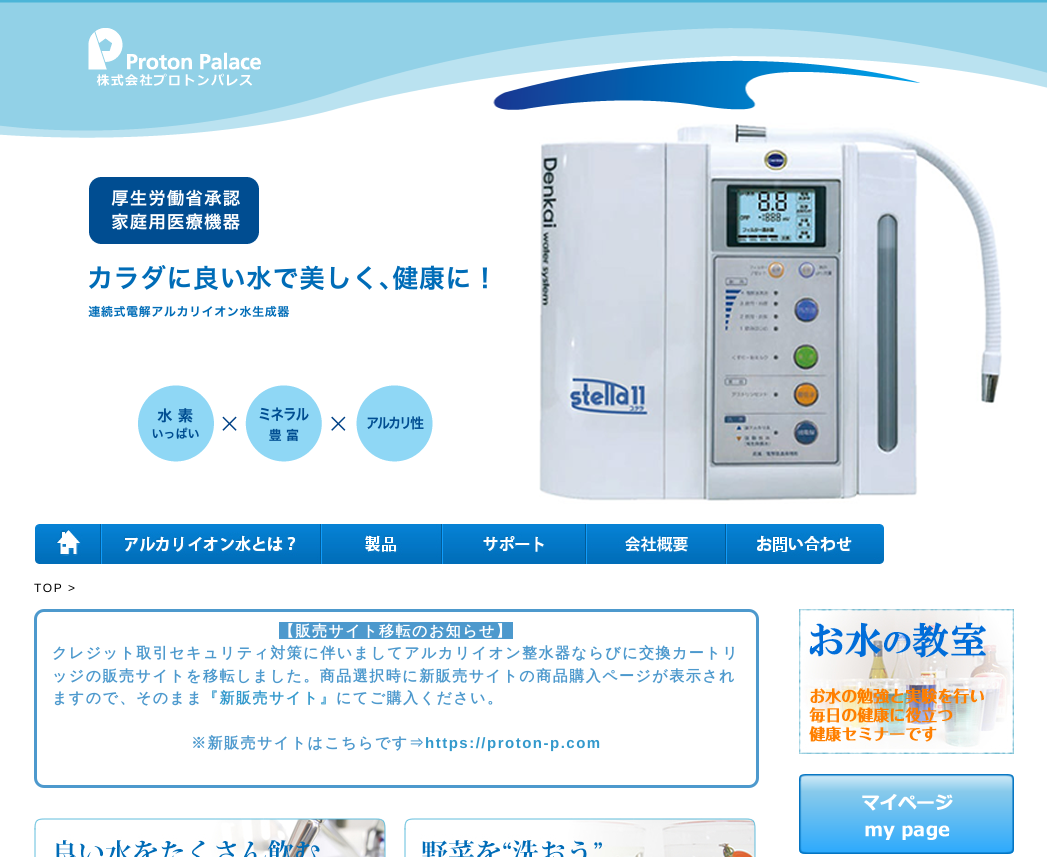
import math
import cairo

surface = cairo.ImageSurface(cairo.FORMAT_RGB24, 1047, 857)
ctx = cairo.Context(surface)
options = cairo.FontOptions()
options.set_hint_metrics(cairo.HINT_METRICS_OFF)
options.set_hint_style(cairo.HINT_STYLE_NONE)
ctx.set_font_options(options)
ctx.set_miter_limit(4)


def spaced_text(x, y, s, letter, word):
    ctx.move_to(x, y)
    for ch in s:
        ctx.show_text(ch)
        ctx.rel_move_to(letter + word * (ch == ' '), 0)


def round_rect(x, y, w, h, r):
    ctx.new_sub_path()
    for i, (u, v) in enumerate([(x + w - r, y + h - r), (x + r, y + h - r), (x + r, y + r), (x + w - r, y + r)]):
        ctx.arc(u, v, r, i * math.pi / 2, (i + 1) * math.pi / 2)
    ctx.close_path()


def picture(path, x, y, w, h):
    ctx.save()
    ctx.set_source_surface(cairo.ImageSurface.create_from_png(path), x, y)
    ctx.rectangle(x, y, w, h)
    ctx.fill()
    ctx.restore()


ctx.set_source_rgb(1, 1, 1)
ctx.paint()
picture("img1.png", 0, 0, 1047, 138)
picture("img2.png", 88, 28, 173, 58)
picture("img3.png", 34, 166, 9, 346)
picture("img4.png", 43, 113, 460, 399)
picture("img5.png", 482, 113, 57, 399)
picture("img6.png", 539, 113, 463, 399)
picture("img7.png", 35, 524, 67, 40)
picture("img8.png", 102, 524, 220, 40)
picture("img9.png", 322, 524, 121, 40)
picture("img10.png", 443, 524, 144, 40)
picture("img11.png", 587, 524, 140, 40)
picture("img12.png", 727, 524, 157, 40)
ctx.select_font_face("Liberation Sans")
ctx.set_font_size(12)
ctx.set_source_rgb(0, 0, 0)
spaced_text(34, 592, "TOP >", 1.5, 0)
round_rect(35.5, 610.5, 722, 176, 8.5)
ctx.set_source_rgb(0.302, 0.6, 0.804)
ctx.set_line_width(3)
ctx.stroke()
ctx.rectangle(279, 622, 234, 17)
ctx.fill()
ctx.select_font_face("WenQuanYi Zen Hei", cairo.FONT_SLANT_NORMAL, cairo.FONT_WEIGHT_BOLD)
ctx.set_font_size(15)
ctx.set_source_rgb(1, 1, 1)
spaced_text(279, 636, "【販売サイト移転のお知らせ】", 1.5, 0)
ctx.set_source_rgb(0.302, 0.6, 0.804)
spaced_text(52, 658, "クレジット取引セキュリティ対策に伴いましてアルカリイオン整水器ならびに交換カートリ", 1.5, 0)
spaced_text(52, 681, "ッジの販売サイトを移転しました。商品選択時に新販売サイトの商品購入ページが表示され", 1.5, 0)
spaced_text(52, 703, "ますので、そのまま", 1.5, 0)
ctx.set_source_rgb(0.2, 0.6, 0.8)
spaced_text(203, 703, "『新販売サイト』", 1.5, 0)
ctx.set_source_rgb(0.302, 0.6, 0.804)
spaced_text(336, 703, "にてご購入ください。", 1.5, 0)
spaced_text(191, 748, "※新販売サイトはこちらです⇒", 1.5, 0)
ctx.select_font_face("Liberation Sans", cairo.FONT_SLANT_NORMAL, cairo.FONT_WEIGHT_BOLD)
ctx.set_source_rgb(0.2, 0.6, 0.8)
spaced_text(425, 748, "https://proton-p.com", 1.5, 0)
picture("img13.png", 34, 818, 352, 39)
picture("img14.png", 404, 818, 352, 39)
picture("img15.png", 799, 609, 215, 145)
picture("img16.png", 799, 774, 215, 80)
surface.write_to_png("page.png")
